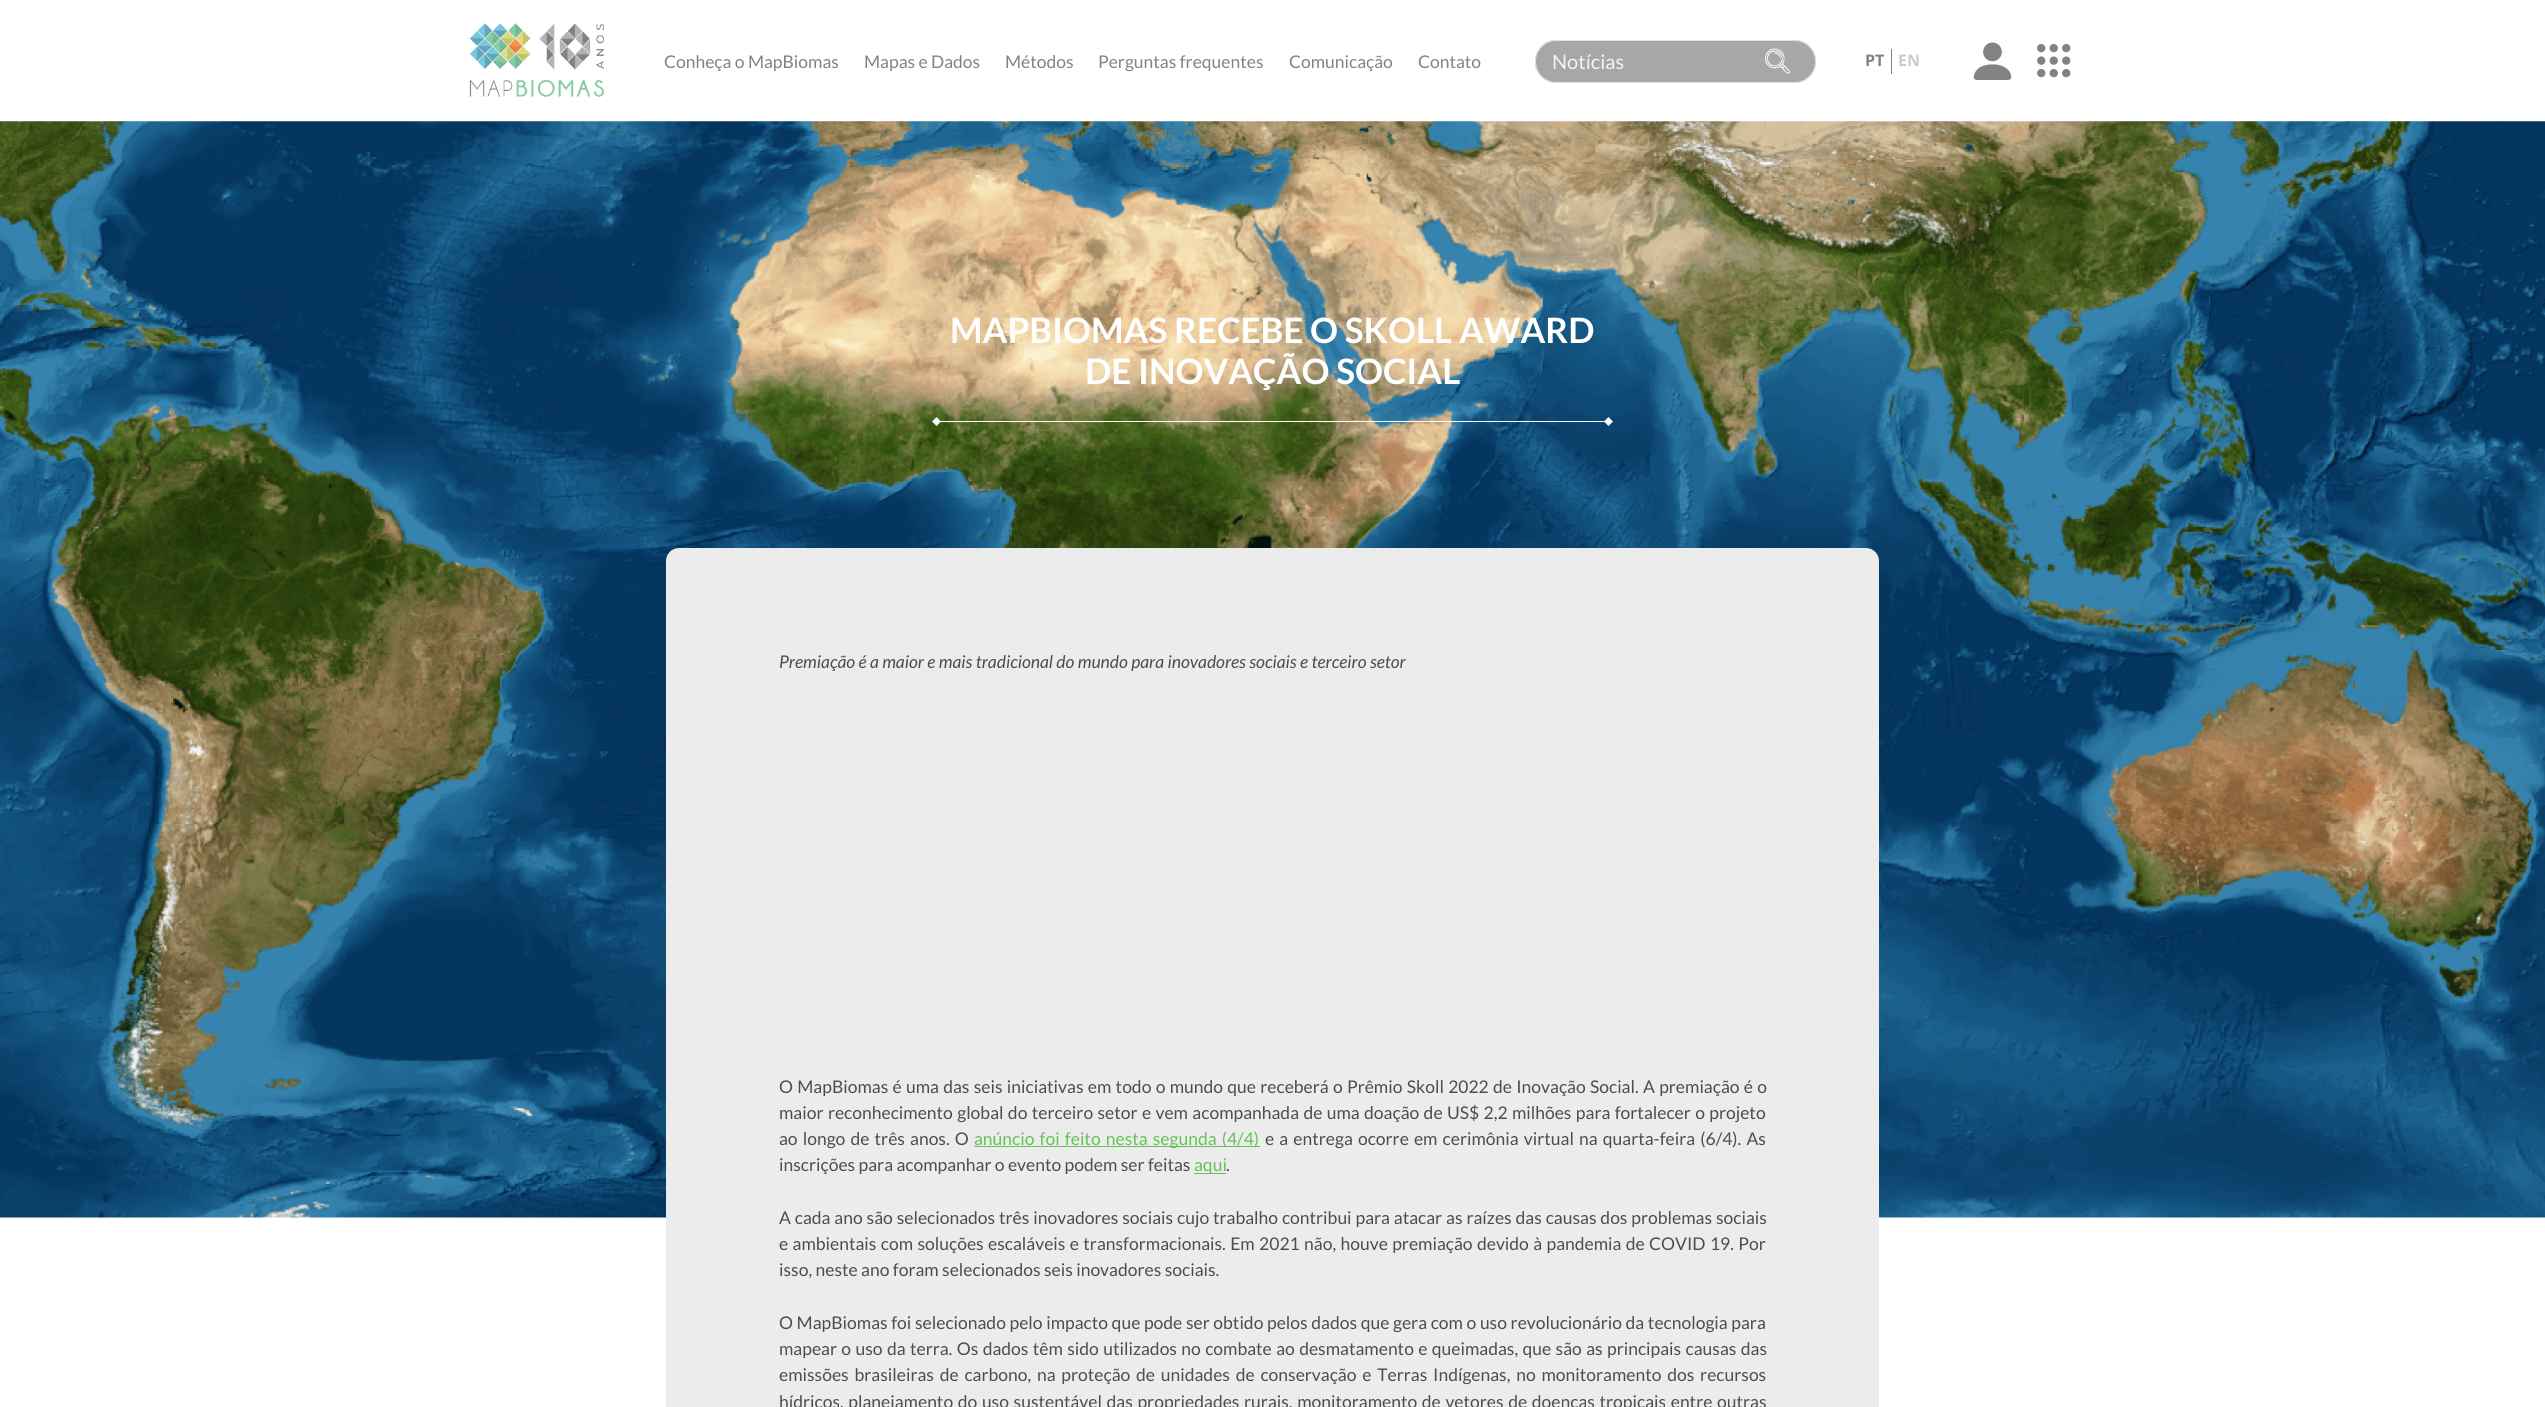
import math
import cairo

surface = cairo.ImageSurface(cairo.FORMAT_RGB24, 2545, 1407)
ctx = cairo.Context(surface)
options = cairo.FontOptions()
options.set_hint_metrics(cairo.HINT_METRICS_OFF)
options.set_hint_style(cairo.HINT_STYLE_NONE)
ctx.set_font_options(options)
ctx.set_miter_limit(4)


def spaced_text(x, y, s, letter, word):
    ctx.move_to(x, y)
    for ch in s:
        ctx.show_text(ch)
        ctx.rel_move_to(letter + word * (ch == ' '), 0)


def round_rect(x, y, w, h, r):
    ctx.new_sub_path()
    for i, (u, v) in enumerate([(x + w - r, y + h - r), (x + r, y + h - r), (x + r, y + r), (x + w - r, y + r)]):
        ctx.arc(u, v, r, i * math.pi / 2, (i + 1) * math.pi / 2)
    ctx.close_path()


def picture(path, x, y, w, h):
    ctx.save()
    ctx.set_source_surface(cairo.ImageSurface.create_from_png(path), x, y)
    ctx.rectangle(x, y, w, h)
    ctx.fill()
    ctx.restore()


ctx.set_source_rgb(1, 1, 1)
ctx.paint()
picture("img1.png", 469, 23, 136, 74)
ctx.select_font_face("Lato")
ctx.set_font_size(17.5)
ctx.set_source_rgb(0.502, 0.51, 0.518)
ctx.move_to(664, 68)
ctx.show_text("Conheça o MapBiomas")
ctx.move_to(864, 68)
ctx.show_text("Mapas e Dados")
ctx.move_to(1005, 68)
ctx.show_text("Métodos")
ctx.move_to(1098, 68)
ctx.show_text("Perguntas frequentes")
ctx.move_to(1289, 68)
ctx.show_text("Comunicação")
ctx.move_to(1418, 68)
ctx.show_text("Contato")
ctx.set_source_rgb(0.651, 0.655, 0.659)
round_rect(1535, 40, 281, 43, 21.5)
ctx.fill()
picture("img2.png", 1765, 48, 25, 26)
round_rect(1535.5, 40.5, 280, 42, 21)
ctx.set_source_rgb(0.871, 0.886, 0.902)
ctx.set_line_width(1)
ctx.stroke()
ctx.set_font_size(20)
ctx.set_source_rgb(0.957, 0.957, 0.957)
ctx.move_to(1552, 69)
ctx.show_text("Notícias")
ctx.set_source_rgb(0.502, 0.51, 0.518)
ctx.rectangle(1891, 49, 1, 25)
ctx.fill()
ctx.select_font_face("Open Sans", cairo.FONT_SLANT_NORMAL, cairo.FONT_WEIGHT_BOLD)
ctx.set_font_size(16)
ctx.move_to(1865, 66)
ctx.show_text("PT")
ctx.set_source_rgb(0.788, 0.796, 0.804)
ctx.move_to(1898, 66)
ctx.show_text("EN")
picture("img3.png", 1973, 42, 39, 38)
picture("img4.png", 2037, 44, 34, 34)
picture("img5.png", 0, 121, 2545, 1097)
ctx.set_source_rgb(1, 1, 1)
ctx.rectangle(934, 421, 677, 1)
ctx.fill()
ctx.select_font_face("Lato", cairo.FONT_SLANT_NORMAL, cairo.FONT_WEIGHT_BOLD)
ctx.set_font_size(35)
ctx.move_to(950, 343)
ctx.show_text("MAPBIOMAS RECEBE O SKOLL AWARD")
ctx.move_to(1085, 384)
ctx.show_text("DE INOVAÇÃO SOCIAL")
ctx.new_path()
ctx.move_to(936.5, 417)
ctx.line_to(941, 421.5)
ctx.line_to(936.5, 426)
ctx.line_to(932, 421.5)
ctx.close_path()
ctx.fill()
ctx.new_path()
ctx.move_to(1608.5, 417)
ctx.line_to(1613, 421.5)
ctx.line_to(1608.5, 426)
ctx.line_to(1604, 421.5)
ctx.close_path()
ctx.fill()
ctx.set_source_rgb(0.925, 0.925, 0.925)
round_rect(666, 548, 1213, 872, 13)
ctx.fill()
ctx.select_font_face("Lato", cairo.FONT_SLANT_ITALIC)
ctx.set_font_size(17.5)
ctx.set_source_rgb(0.294, 0.302, 0.322)
ctx.move_to(779, 668)
ctx.show_text("Premiação é a maior e mais tradicional do mundo para inovadores sociais e terceiro setor")
ctx.select_font_face("Lato")
spaced_text(779, 1093, "O MapBiomas é uma das seis iniciativas em todo o mundo que receberá o Prêmio Skoll 2022 de Inovação Social. A premiação é o", 0, 0.9)
spaced_text(779, 1119, "maior reconhecimento global do terceiro setor e vem acompanhada de uma doação de US$ 2,2 milhões para fortalecer o projeto", 0, 1)
spaced_text(779, 1145, "ao longo de três anos. O", 0, 1.75)
ctx.set_source_rgb(0.392, 0.761, 0.333)
ctx.rectangle(974, 1146, 286, 1)
ctx.fill()
spaced_text(974, 1145, "anúncio foi feito nesta segunda (4/4)", 0, 1.75)
ctx.set_source_rgb(0.294, 0.302, 0.322)
spaced_text(1265, 1145, "e a entrega ocorre em cerimônia virtual na quarta-feira (6/4). As", 0, 1.75)
ctx.move_to(779, 1171)
ctx.show_text("inscrições para acompanhar o evento podem ser feitas")
ctx.set_source_rgb(0.392, 0.761, 0.333)
ctx.rectangle(1194, 1173, 32, 1)
ctx.fill()
ctx.move_to(1194, 1171)
ctx.show_text("aqui")
ctx.set_source_rgb(0.294, 0.302, 0.322)
ctx.move_to(1226, 1171)
ctx.show_text(".")
spaced_text(779, 1224, "A cada ano são selecionados três inovadores sociais cujo trabalho contribui para atacar as raízes das causas dos problemas sociais", 0, 0.5)
spaced_text(779, 1250, "e ambientais com soluções escaláveis e transformacionais. Em 2021 não, houve premiação devido à pandemia de COVID 19. Por", 0, 1)
ctx.move_to(779, 1276)
ctx.show_text("isso, neste ano foram selecionados seis inovadores sociais.")
spaced_text(779, 1329, "O MapBiomas foi selecionado pelo impacto que pode ser obtido pelos dados que gera com o uso revolucionário da tecnologia para", 0, 0.25)
spaced_text(779, 1355, "mapear o uso da terra. Os dados têm sido utilizados no combate ao desmatamento e queimadas, que são as principais causas das", 0, 1)
spaced_text(779, 1381, "emissões brasileiras de carbono, na proteção de unidades de conservação e Terras Indígenas, no monitoramento dos recursos", 0, 2.4)
spaced_text(779, 1408, "hídricos, planejamento do uso sustentável das propriedades rurais, monitoramento de vetores de doenças tropicais entre outras", 0, 1.25)
surface.write_to_png("page.png")
